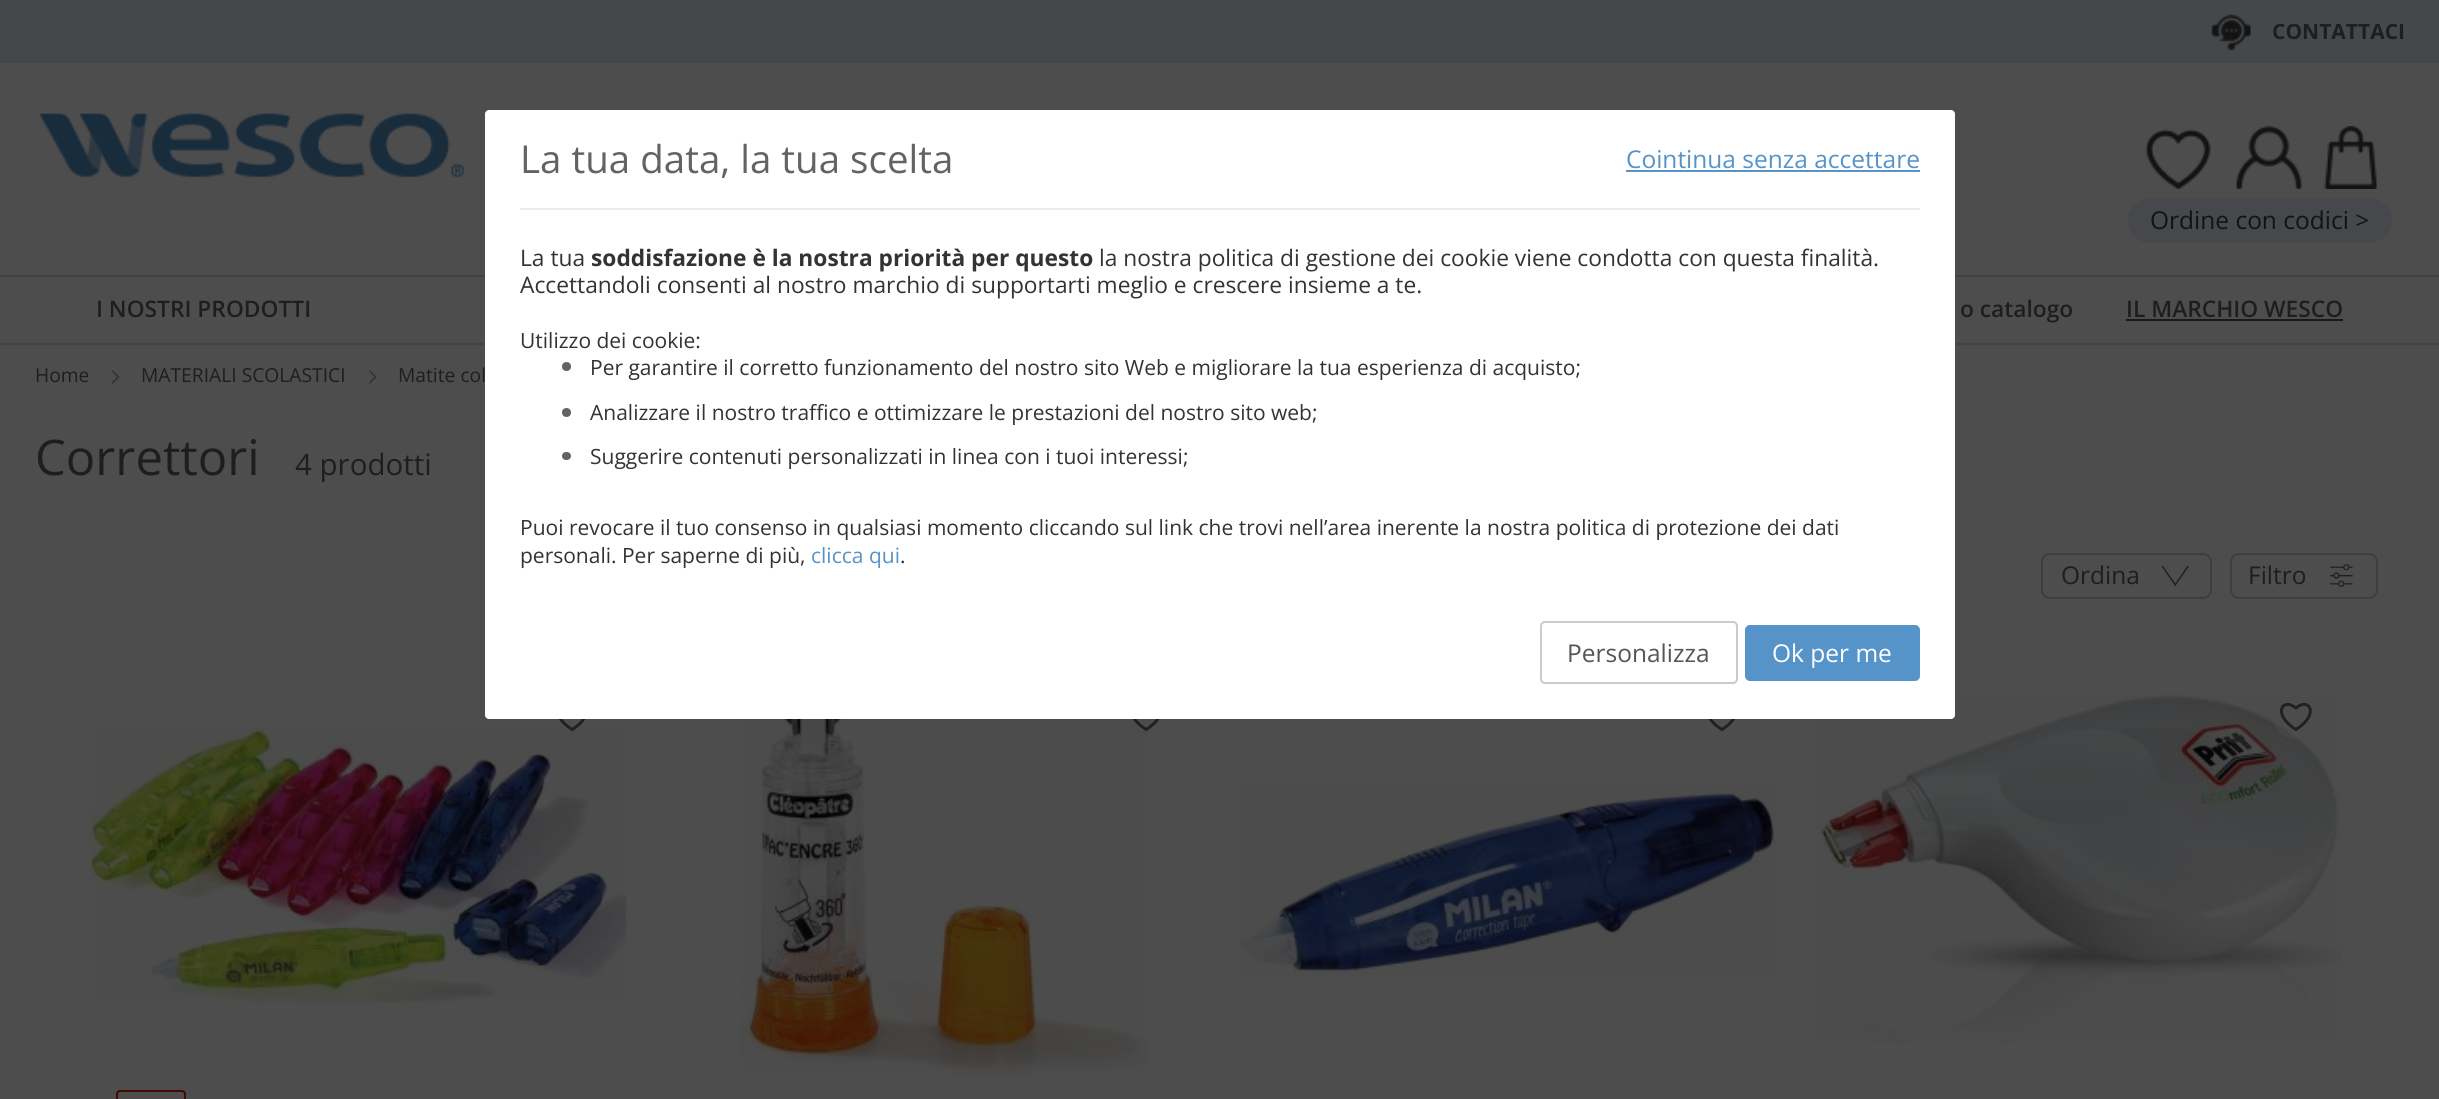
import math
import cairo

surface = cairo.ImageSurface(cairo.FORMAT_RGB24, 2439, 1099)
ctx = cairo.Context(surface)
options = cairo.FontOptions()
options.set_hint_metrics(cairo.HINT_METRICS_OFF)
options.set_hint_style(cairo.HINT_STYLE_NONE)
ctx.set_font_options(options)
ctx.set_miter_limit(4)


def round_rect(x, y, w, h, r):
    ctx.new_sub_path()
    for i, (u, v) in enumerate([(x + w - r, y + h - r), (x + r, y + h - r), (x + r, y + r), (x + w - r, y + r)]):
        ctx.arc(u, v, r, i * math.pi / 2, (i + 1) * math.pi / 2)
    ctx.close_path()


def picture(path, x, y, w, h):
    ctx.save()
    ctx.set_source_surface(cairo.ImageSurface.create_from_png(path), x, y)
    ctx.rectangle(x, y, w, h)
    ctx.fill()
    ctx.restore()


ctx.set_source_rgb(0.302, 0.302, 0.302)
ctx.paint()
ctx.set_source_rgb(0.271, 0.282, 0.29)
ctx.rectangle(0, 0, 2439, 61)
ctx.fill()
ctx.set_source_rgb(0.275, 0.275, 0.275)
ctx.rectangle(0, 61, 2439, 2)
ctx.fill()
picture("img1.png", 2211, 14, 40, 37)
ctx.select_font_face("Open Sans", cairo.FONT_SLANT_NORMAL, cairo.FONT_WEIGHT_BOLD)
ctx.set_font_size(21)
ctx.set_source_rgb(0.118, 0.118, 0.118)
ctx.move_to(2272, 39)
ctx.show_text("CONTATTACI")
picture("img2.png", 39, 113, 426, 65)
picture("img3.png", 2145, 129, 66, 60)
picture("img4.png", 2236, 126, 66, 63)
picture("img5.png", 2323, 126, 56, 63)
ctx.set_source_rgb(0.275, 0.282, 0.294)
round_rect(2128, 198, 264, 45, 22.5)
ctx.fill()
ctx.select_font_face("Open Sans")
ctx.set_font_size(24.5)
ctx.set_source_rgb(0.075, 0.075, 0.078)
ctx.move_to(2150, 229)
ctx.show_text("Ordine con codici >")
ctx.set_source_rgb(0.263, 0.263, 0.263)
ctx.rectangle(0, 275, 2439, 2)
ctx.fill()
ctx.rectangle(0, 343, 2439, 2)
ctx.fill()
ctx.select_font_face("Open Sans SemiBold")
ctx.set_font_size(22.75)
ctx.set_source_rgb(0.118, 0.118, 0.118)
ctx.move_to(96, 317)
ctx.show_text("I NOSTRI PRODOTTI")
ctx.move_to(1960, 317)
ctx.show_text("o catalogo")
ctx.move_to(2126, 317)
ctx.show_text("IL MARCHIO WESCO")
ctx.set_source_rgb(0.102, 0.102, 0.102)
ctx.rectangle(2126, 319, 217, 2)
ctx.fill()
ctx.select_font_face("Open Sans")
ctx.set_font_size(19.25)
ctx.set_source_rgb(0.118, 0.118, 0.118)
ctx.move_to(35, 382)
ctx.show_text("Home")
picture("img6.png", 111, 370, 9, 14)
ctx.move_to(141, 382)
ctx.show_text("MATERIALI SCOLASTICI")
picture("img7.png", 369, 370, 8, 14)
ctx.move_to(398, 382)
ctx.show_text("Matite col")
ctx.set_font_size(49)
ctx.move_to(35, 475)
ctx.show_text("Correttori")
ctx.set_font_size(29.5)
ctx.move_to(295, 475)
ctx.show_text("4 prodotti")
round_rect(2042, 554, 169, 44, 8)
ctx.set_source_rgb(0.243, 0.243, 0.243)
ctx.stroke()
ctx.set_font_size(24.5)
ctx.set_source_rgb(0.118, 0.118, 0.118)
ctx.move_to(2061, 584)
ctx.show_text("Ordina")
picture("img8.png", 2162, 565, 27, 21)
round_rect(2231, 554, 146, 44, 8)
ctx.set_source_rgb(0.243, 0.243, 0.243)
ctx.stroke()
ctx.set_source_rgb(0.118, 0.118, 0.118)
ctx.move_to(2248, 584)
ctx.show_text("Filtro")
picture("img9.png", 2330, 564, 23, 23)
picture("img11.png", 89, 727, 538, 277)
picture("img10.png", 558, 719, 28, 12)
round_rect(117, 1091, 68, 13, 3)
ctx.set_source_rgb(0.267, 0.039, 0)
ctx.stroke()
picture("img12.png", 739, 719, 411, 358)
picture("img10.png", 1132, 719, 28, 12)
picture("img13.png", 1708, 719, 28, 12)
picture("img14.png", 1239, 782, 537, 196)
picture("img15.png", 1815, 692, 527, 352)
ctx.set_source_rgba(0.302, 0.302, 0.302, 0.5)
ctx.arc(2295, 717, 22, 0, 2 * math.pi)
ctx.fill()
picture("img16.png", 2280, 703, 32, 28)
ctx.set_source_rgb(1, 1, 1)
round_rect(485, 110, 1470, 609, 4)
ctx.fill()
ctx.set_source_rgb(0.925, 0.925, 0.925)
ctx.rectangle(520, 208, 1400, 2)
ctx.fill()
ctx.set_font_size(38.5)
ctx.set_source_rgb(0.388, 0.388, 0.388)
ctx.move_to(520, 173)
ctx.show_text("La tua data, la tua scelta")
ctx.set_font_size(24.5)
ctx.set_source_rgb(0.333, 0.576, 0.788)
ctx.move_to(1626, 168)
ctx.show_text("Cointinua senza accettare")
ctx.rectangle(1626, 170, 294, 2)
ctx.fill()
ctx.set_font_size(22.75)
ctx.set_source_rgb(0.2, 0.2, 0.2)
ctx.move_to(520, 266)
ctx.show_text("La tua")
ctx.select_font_face("Open Sans", cairo.FONT_SLANT_NORMAL, cairo.FONT_WEIGHT_BOLD)
ctx.move_to(591, 266)
ctx.show_text("soddisfazione è la nostra priorità per questo")
ctx.select_font_face("Open Sans")
ctx.move_to(1099, 266)
ctx.show_text("la nostra politica di gestione dei cookie viene condotta con questa finalità.")
ctx.move_to(520, 293)
ctx.show_text("Accettandoli consenti al nostro marchio di supportarti meglio e crescere insieme a te.")
ctx.set_font_size(21)
ctx.move_to(520, 348)
ctx.show_text("Utilizzo dei cookie:")
ctx.set_source_rgb(0.388, 0.388, 0.388)
ctx.new_path()
ctx.arc(566.5, 366.5, 4.5, 0, 2 * math.pi)
ctx.fill()
ctx.set_source_rgb(0.2, 0.2, 0.2)
ctx.move_to(590, 375)
ctx.show_text("Per garantire il corretto funzionamento del nostro sito Web e migliorare la tua esperienza di acquisto;")
ctx.set_source_rgb(0.388, 0.388, 0.388)
ctx.new_path()
ctx.arc(566.5, 412.5, 4.5, 0, 2 * math.pi)
ctx.fill()
ctx.set_source_rgb(0.2, 0.2, 0.2)
ctx.move_to(590, 420)
ctx.show_text("Analizzare il nostro traffico e ottimizzare le prestazioni del nostro sito web;")
ctx.set_source_rgb(0.388, 0.388, 0.388)
round_rect(562, 452, 9, 8, 4)
ctx.fill()
ctx.set_source_rgb(0.2, 0.2, 0.2)
ctx.move_to(590, 464)
ctx.show_text("Suggerire contenuti personalizzati in linea con i tuoi interessi;")
ctx.move_to(520, 535)
ctx.show_text("Puoi revocare il tuo consenso in qualsiasi momento cliccando sul link che trovi nell’area inerente la nostra politica di protezione dei dati")
ctx.move_to(520, 563)
ctx.show_text("personali. Per saperne di più,")
ctx.set_source_rgb(0.333, 0.576, 0.788)
ctx.move_to(811, 563)
ctx.show_text("clicca qui")
ctx.set_source_rgb(0.2, 0.2, 0.2)
ctx.move_to(900, 563)
ctx.show_text(".")
round_rect(1541, 622, 196, 61, 4)
ctx.set_source_rgb(0.796, 0.796, 0.796)
ctx.stroke()
ctx.set_font_size(24.5)
ctx.set_source_rgb(0.333, 0.333, 0.333)
ctx.move_to(1567, 662)
ctx.show_text("Personalizza")
ctx.set_source_rgb(0.333, 0.576, 0.788)
round_rect(1746, 626, 173, 54, 4)
ctx.fill_preserve()
ctx.stroke()
ctx.set_source_rgb(1, 1, 1)
ctx.move_to(1772, 662)
ctx.show_text("Ok per me")
surface.write_to_png("page.png")
